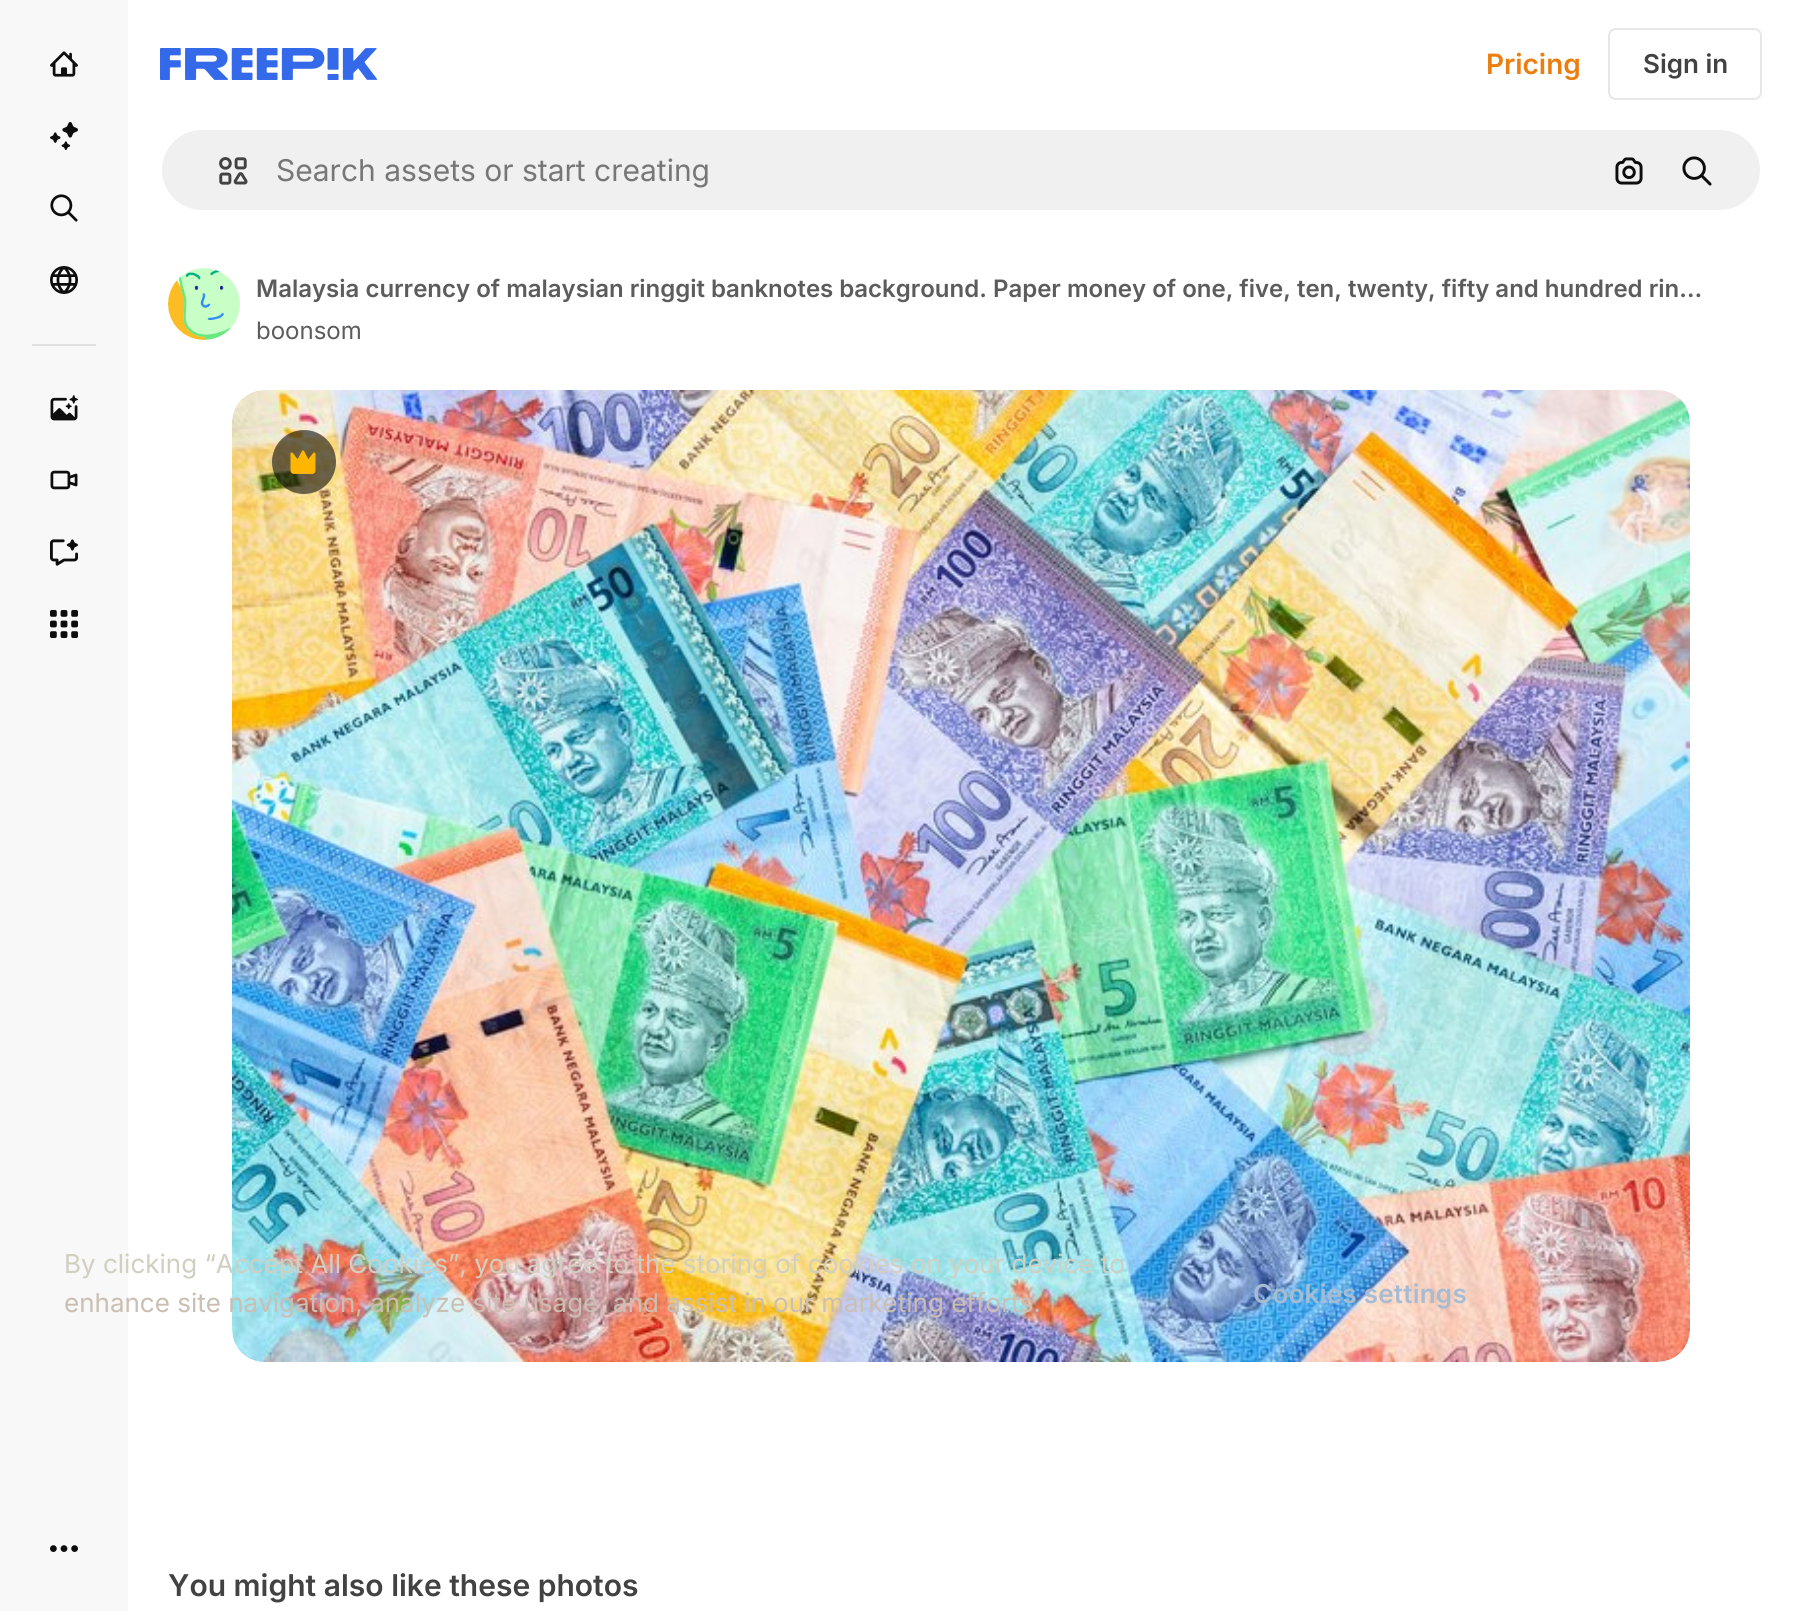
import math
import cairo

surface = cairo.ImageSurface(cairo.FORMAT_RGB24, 1793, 1611)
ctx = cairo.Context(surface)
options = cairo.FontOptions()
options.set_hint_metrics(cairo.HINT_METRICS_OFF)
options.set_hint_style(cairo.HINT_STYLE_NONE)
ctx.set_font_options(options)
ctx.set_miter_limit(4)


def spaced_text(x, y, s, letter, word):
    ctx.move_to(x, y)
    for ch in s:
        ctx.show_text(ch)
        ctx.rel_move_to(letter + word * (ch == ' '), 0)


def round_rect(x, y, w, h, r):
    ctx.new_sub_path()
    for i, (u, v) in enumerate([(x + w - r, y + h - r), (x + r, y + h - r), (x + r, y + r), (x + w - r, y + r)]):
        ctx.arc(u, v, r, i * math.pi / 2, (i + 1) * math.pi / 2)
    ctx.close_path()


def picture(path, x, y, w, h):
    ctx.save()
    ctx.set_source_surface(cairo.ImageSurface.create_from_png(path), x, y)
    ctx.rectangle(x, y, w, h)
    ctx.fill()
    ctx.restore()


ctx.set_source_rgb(1, 1, 1)
ctx.paint()
ctx.set_source_rgb(0.969, 0.969, 0.969)
ctx.rectangle(0, 0, 128, 1611)
ctx.fill()
picture("img1.png", 50, 51, 28, 26)
picture("img2.png", 50, 122, 28, 28)
picture("img3.png", 50, 194, 28, 28)
picture("img4.png", 50, 266, 28, 28)
ctx.set_source_rgb(0.878, 0.878, 0.878)
ctx.rectangle(32, 344, 64, 2)
ctx.fill()
picture("img5.png", 50, 395, 28, 26)
picture("img6.png", 50, 470, 28, 20)
picture("img7.png", 50, 539, 28, 27)
picture("img8.png", 50, 610, 28, 28)
picture("img9.png", 50, 1545, 28, 7)
picture("img10.png", 160, 48, 218, 32)
ctx.select_font_face("Inter SemiBold")
ctx.set_font_size(28)
ctx.set_source_rgb(0.918, 0.494, 0.067)
ctx.move_to(1486, 74)
ctx.show_text("Pricing")
round_rect(1609, 29, 152, 70, 7)
ctx.set_source_rgb(0.906, 0.906, 0.906)
ctx.stroke()
ctx.set_font_size(26)
ctx.set_source_rgb(0.259, 0.259, 0.259)
ctx.move_to(1643, 73)
ctx.show_text("Sign in")
ctx.set_source_rgb(0.941, 0.941, 0.941)
round_rect(161, 129, 1600, 82, 41)
ctx.fill_preserve()
ctx.set_source_rgb(1, 1, 1)
ctx.stroke()
picture("img11.png", 219, 157, 29, 28)
ctx.select_font_face("Inter")
ctx.set_font_size(30)
ctx.set_source_rgb(0.467, 0.467, 0.467)
ctx.move_to(276, 181)
ctx.show_text("Search assets or start creating")
picture("img12.png", 1615, 157, 28, 28)
picture("img13.png", 1682, 156, 30, 30)
picture("img14.png", 168, 268, 72, 72)
ctx.select_font_face("Inter SemiBold")
ctx.set_font_size(24)
ctx.set_source_rgb(0.361, 0.361, 0.361)
ctx.move_to(256, 297)
ctx.show_text("Malaysia currency of malaysian ringgit banknotes background. Paper money of one, five, ten, twenty, fifty and hundred rin…")
ctx.select_font_face("Inter")
ctx.move_to(256, 339)
ctx.show_text("boonsom")
picture("img15.png", 232, 390, 1458, 972)
ctx.set_source_rgba(0.051, 0.051, 0.051, 0.6)
ctx.arc(304, 462, 32, 0, 2 * math.pi)
ctx.fill()
picture("img16.png", 290, 450, 26, 24)
ctx.select_font_face("Inter SemiBold")
ctx.set_font_size(30)
ctx.set_source_rgb(0.259, 0.259, 0.259)
ctx.move_to(168, 1596)
ctx.show_text("You might also like these photos")
ctx.select_font_face("Inter")
ctx.set_font_size(26)
ctx.set_source_rgb(0.816, 0.812, 0.753)
ctx.move_to(64, 1273)
ctx.show_text("By clicking “Accept All Cookies”, you agree to the storing of cookies on your device to")
ctx.set_source_rgb(0.796, 0.745, 0.698)
ctx.move_to(64, 1312)
ctx.show_text("enhance site navigation, analyze site usage, and assist in our marketing efforts.")
ctx.select_font_face("Inter SemiBold")
ctx.set_source_rgb(0.655, 0.737, 0.827)
spaced_text(1253, 1303, "Cookies settings", 0.25, 0)
surface.write_to_png("page.png")
